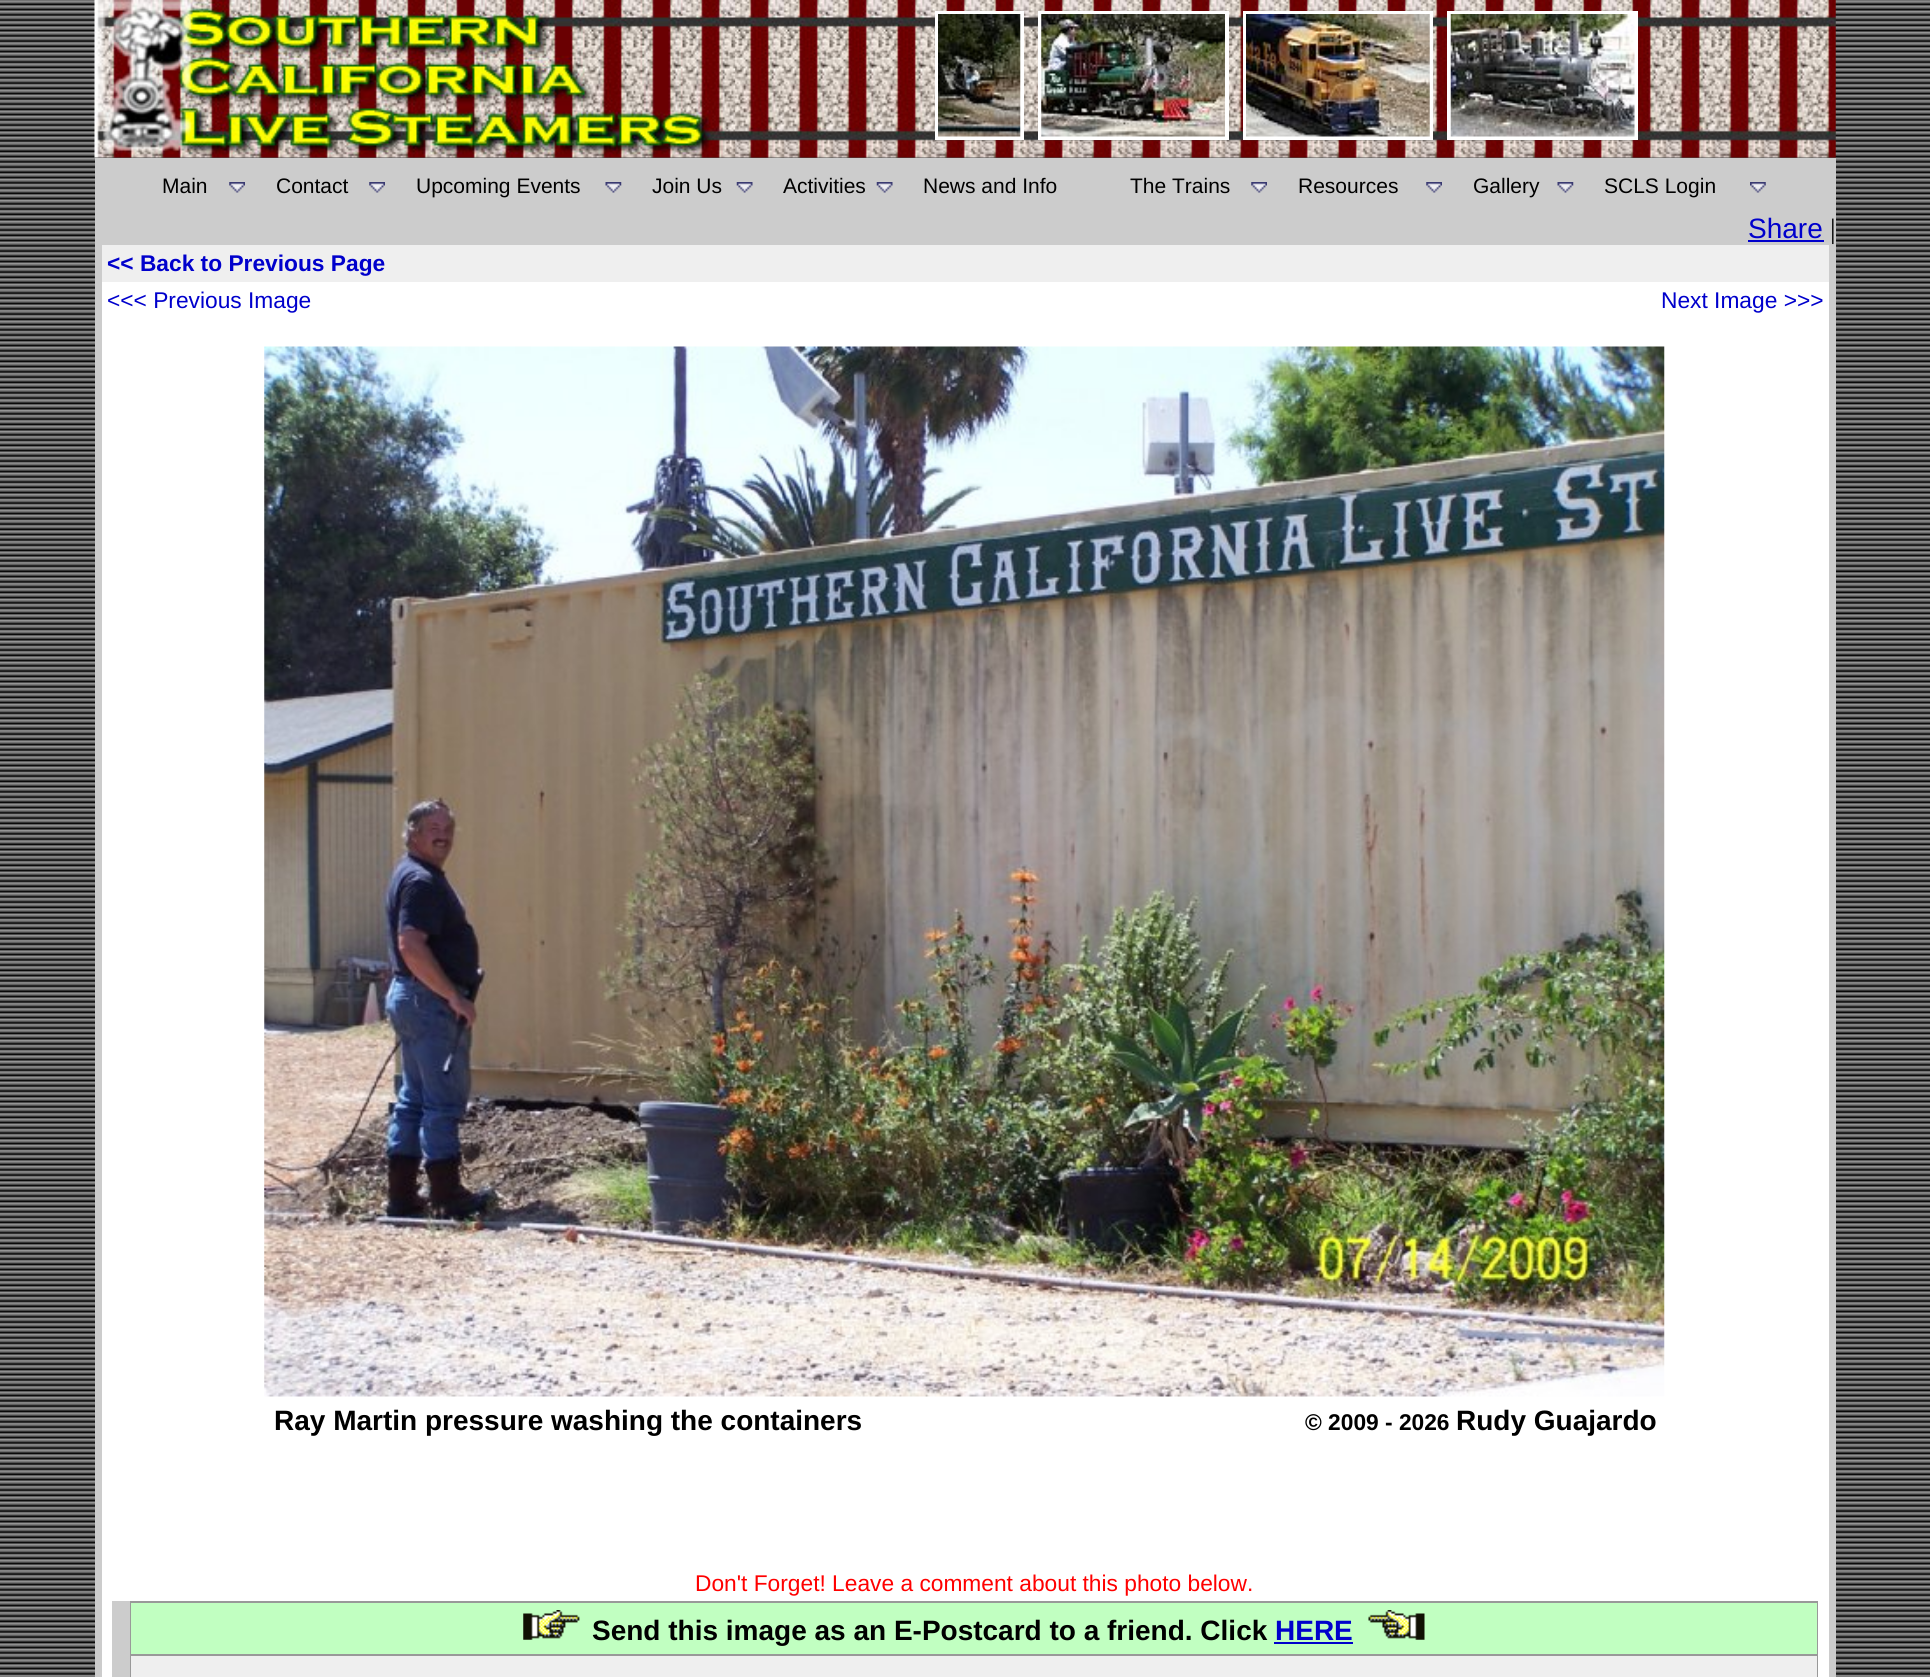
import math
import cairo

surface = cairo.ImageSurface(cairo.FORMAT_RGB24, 1930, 1677)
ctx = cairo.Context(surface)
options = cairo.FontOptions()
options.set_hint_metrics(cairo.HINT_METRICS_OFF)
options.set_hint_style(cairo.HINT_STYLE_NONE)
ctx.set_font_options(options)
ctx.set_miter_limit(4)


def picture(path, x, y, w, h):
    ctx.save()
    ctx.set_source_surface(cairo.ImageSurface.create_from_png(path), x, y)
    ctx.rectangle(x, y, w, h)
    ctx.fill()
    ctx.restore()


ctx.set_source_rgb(1, 1, 1)
ctx.paint()
picture("img1.png", 0, 0, 1930, 1677)
picture("img2.png", 94, 0, 641, 158)
picture("img3.png", 735, 0, 1101, 158)
ctx.rectangle(937, 13, 85, 125)
ctx.set_source_rgb(1, 1, 1)
ctx.set_line_width(4)
ctx.stroke()
ctx.rectangle(1040, 13, 187, 125)
ctx.stroke()
ctx.rectangle(1245, 13, 186, 125)
ctx.stroke()
ctx.rectangle(1449, 13, 187, 125)
ctx.stroke()
picture("img4.png", 938, 14, 83, 123)
picture("img5.png", 1041, 14, 184, 123)
picture("img6.png", 1246, 14, 184, 123)
picture("img7.png", 1450, 14, 185, 123)
ctx.set_source_rgb(0.8, 0.8, 0.8)
ctx.rectangle(95, 158, 1741, 56)
ctx.fill()
ctx.select_font_face("Liberation Sans")
ctx.set_font_size(21)
ctx.set_source_rgb(0, 0, 0)
ctx.move_to(162, 193)
ctx.show_text("Main")
picture("img8.png", 229, 182, 16, 11)
ctx.move_to(276, 193)
ctx.show_text("Contact")
picture("img8.png", 369, 182, 16, 11)
ctx.move_to(416, 193)
ctx.show_text("Upcoming Events")
picture("img9.png", 605, 182, 17, 11)
ctx.move_to(652, 193)
ctx.show_text("Join Us")
picture("img10.png", 736, 182, 17, 11)
ctx.move_to(783, 193)
ctx.show_text("Activities")
picture("img11.png", 876, 182, 17, 11)
ctx.move_to(923, 193)
ctx.show_text("News and Info")
ctx.move_to(1130, 193)
ctx.show_text("The Trains")
picture("img8.png", 1251, 182, 16, 11)
ctx.move_to(1298, 193)
ctx.show_text("Resources")
picture("img8.png", 1426, 182, 16, 11)
ctx.move_to(1473, 193)
ctx.show_text("Gallery")
picture("img12.png", 1557, 182, 17, 11)
ctx.move_to(1604, 193)
ctx.show_text("SCLS Login")
picture("img13.png", 1750, 182, 16, 11)
ctx.set_source_rgb(0.8, 0.8, 0.8)
ctx.rectangle(95, 214, 1741, 31)
ctx.fill()
ctx.set_font_size(28)
ctx.set_source_rgb(0, 0, 0.8)
ctx.move_to(1748, 238)
ctx.show_text("Share")
ctx.rectangle(1748, 240, 76, 2)
ctx.fill()
ctx.select_font_face("Liberation Serif")
ctx.set_source_rgb(0, 0, 0)
ctx.move_to(1830, 238)
ctx.show_text("|")
ctx.set_source_rgb(0.8, 0.8, 0.8)
ctx.rectangle(1829, 245, 7, 1432)
ctx.fill()
ctx.set_source_rgb(1, 1, 1)
ctx.rectangle(102, 282, 1727, 1395)
ctx.fill()
ctx.set_source_rgb(0.8, 0.8, 0.8)
ctx.rectangle(95, 245, 7, 1432)
ctx.fill()
ctx.set_source_rgb(0.937, 0.937, 0.937)
ctx.rectangle(102, 245, 1727, 37)
ctx.fill()
ctx.select_font_face("Liberation Sans", cairo.FONT_SLANT_NORMAL, cairo.FONT_WEIGHT_BOLD)
ctx.set_font_size(22.75)
ctx.set_source_rgb(0, 0, 0.8)
ctx.move_to(107, 271)
ctx.show_text("<< Back to Previous Page")
ctx.select_font_face("Liberation Sans")
ctx.move_to(107, 308)
ctx.show_text("<<< Previous Image")
ctx.move_to(1661, 308)
ctx.show_text("Next Image >>>")
picture("img14.png", 264, 346, 1401, 1051)
ctx.select_font_face("Liberation Sans", cairo.FONT_SLANT_NORMAL, cairo.FONT_WEIGHT_BOLD)
ctx.set_font_size(28)
ctx.set_source_rgb(0, 0, 0)
ctx.move_to(274, 1430)
ctx.show_text("Ray Martin pressure washing the containers")
ctx.set_font_size(22.75)
ctx.move_to(1305, 1430)
ctx.show_text("© 2009 - 2026")
ctx.set_font_size(28)
ctx.move_to(1456, 1430)
ctx.show_text("Rudy Guajardo")
ctx.select_font_face("Liberation Sans")
ctx.set_font_size(22.75)
ctx.set_source_rgb(1, 0, 0)
ctx.move_to(695, 1591)
ctx.show_text("Don't Forget! Leave a comment about this photo below.")
ctx.set_source_rgb(0.8, 0.8, 0.8)
ctx.rectangle(112, 1601, 18, 76)
ctx.fill()
ctx.set_source_rgb(0.6, 0.6, 0.6)
ctx.rectangle(130, 1601, 1688, 76)
ctx.fill()
ctx.set_source_rgb(0.757, 1, 0.757)
ctx.rectangle(131, 1603, 1686, 51)
ctx.fill()
picture("img15.png", 523, 1610, 57, 30)
ctx.select_font_face("Liberation Sans", cairo.FONT_SLANT_NORMAL, cairo.FONT_WEIGHT_BOLD)
ctx.set_font_size(28)
ctx.set_source_rgb(0, 0, 0)
ctx.move_to(592, 1640)
ctx.show_text("Send this image as an E-Postcard to a friend. Click")
ctx.set_source_rgb(0, 0, 0.8)
ctx.move_to(1275, 1640)
ctx.show_text("HERE")
ctx.rectangle(1274, 1642, 79, 2)
ctx.fill()
picture("img16.png", 1368, 1610, 57, 30)
ctx.set_source_rgb(0.937, 0.937, 0.937)
ctx.rectangle(131, 1656, 1686, 21)
ctx.fill()
surface.write_to_png("page.png")
